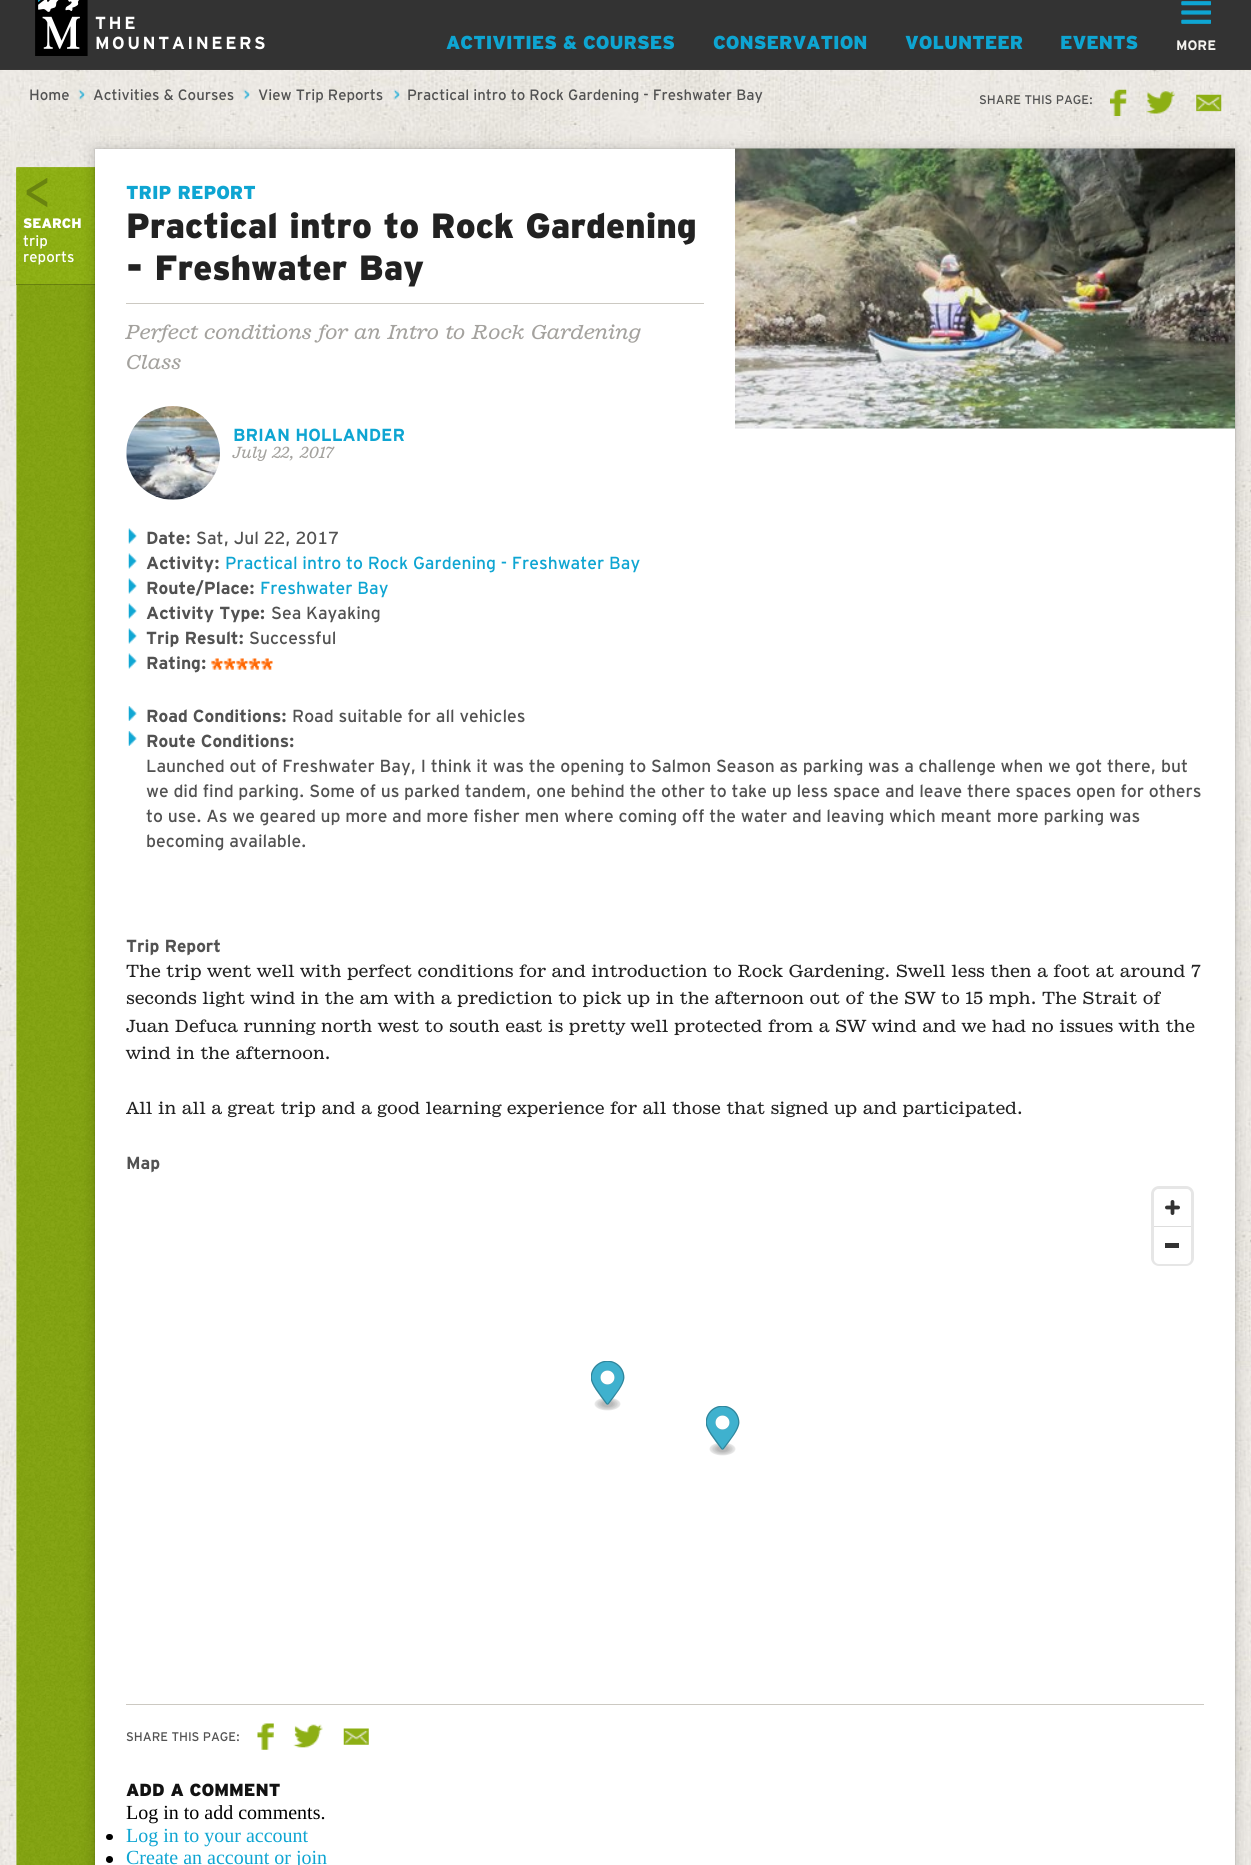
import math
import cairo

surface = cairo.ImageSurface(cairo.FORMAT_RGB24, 1251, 1865)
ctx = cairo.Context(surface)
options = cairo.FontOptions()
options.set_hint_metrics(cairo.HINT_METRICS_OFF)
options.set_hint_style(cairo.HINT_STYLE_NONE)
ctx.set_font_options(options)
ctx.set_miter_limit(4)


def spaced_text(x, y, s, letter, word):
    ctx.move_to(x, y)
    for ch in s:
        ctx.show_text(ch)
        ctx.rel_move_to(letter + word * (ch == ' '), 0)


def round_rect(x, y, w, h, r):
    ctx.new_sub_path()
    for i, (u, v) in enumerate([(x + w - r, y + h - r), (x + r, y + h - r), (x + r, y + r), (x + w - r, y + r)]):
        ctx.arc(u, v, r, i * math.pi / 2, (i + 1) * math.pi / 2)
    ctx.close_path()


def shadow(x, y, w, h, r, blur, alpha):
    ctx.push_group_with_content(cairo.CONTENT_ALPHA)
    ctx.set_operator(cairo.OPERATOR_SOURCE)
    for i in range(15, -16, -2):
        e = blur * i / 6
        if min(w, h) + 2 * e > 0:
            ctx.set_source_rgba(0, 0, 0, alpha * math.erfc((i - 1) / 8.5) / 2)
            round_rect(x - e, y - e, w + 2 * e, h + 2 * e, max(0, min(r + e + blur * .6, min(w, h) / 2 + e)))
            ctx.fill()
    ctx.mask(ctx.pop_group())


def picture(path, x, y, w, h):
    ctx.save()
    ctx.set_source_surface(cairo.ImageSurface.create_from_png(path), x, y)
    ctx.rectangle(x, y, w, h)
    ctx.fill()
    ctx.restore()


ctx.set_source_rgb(1, 1, 1)
ctx.paint()
picture("img1.png", 0, 70, 1251, 1795)
ctx.set_source_rgb(0.2, 0.2, 0.2)
ctx.rectangle(0, 0, 1251, 69)
ctx.fill()
ctx.set_source_rgb(0.22, 0.216, 0.212)
ctx.rectangle(0, 69, 1251, 1)
ctx.fill()
picture("img2.png", 35, 0, 53, 56)
ctx.select_font_face("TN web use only", cairo.FONT_SLANT_NORMAL, cairo.FONT_WEIGHT_BOLD)
ctx.set_font_size(17.5)
ctx.set_source_rgb(1, 1, 1)
spaced_text(95, 29, "THE", 2.5, 0)
spaced_text(95, 49, "MOUNTAINEERS", 2.5, 0)
ctx.select_font_face("TN web use only Black")
ctx.set_font_size(18.75)
ctx.set_source_rgb(0.055, 0.647, 0.824)
ctx.move_to(446, 49)
ctx.show_text("ACTIVITIES & COURSES")
ctx.move_to(713, 49)
ctx.show_text("CONSERVATION")
ctx.move_to(905, 49)
ctx.show_text("VOLUNTEER")
ctx.move_to(1060, 49)
ctx.show_text("EVENTS")
picture("img3.png", 1181, 1, 30, 23)
ctx.select_font_face("TN web use only", cairo.FONT_SLANT_NORMAL, cairo.FONT_WEIGHT_BOLD)
ctx.set_font_size(13.75)
ctx.set_source_rgb(0.957, 0.953, 0.937)
ctx.move_to(1176, 50)
ctx.show_text("MORE")
ctx.select_font_face("TN web use only")
ctx.set_font_size(15)
ctx.set_source_rgb(0.322, 0.322, 0.322)
ctx.move_to(29, 100)
ctx.show_text("Home")
picture("img4.png", 78, 89, 7, 11)
ctx.move_to(93, 100)
ctx.show_text("Activities & Courses")
picture("img5.png", 243, 89, 7, 11)
ctx.move_to(258, 100)
ctx.show_text("View Trip Reports")
picture("img6.png", 393, 89, 7, 11)
ctx.move_to(407, 100)
ctx.show_text("Practical intro to Rock Gardening - Freshwater Bay")
ctx.set_font_size(12.5)
ctx.move_to(979, 104)
ctx.show_text("SHARE THIS PAGE:")
picture("img7.png", 1110, 89, 17, 27)
picture("img8.png", 1146, 90, 29, 24)
picture("img9.png", 1196, 94, 26, 18)
picture("img10.png", 16, 167, 79, 1698)
picture("img11.png", 16, 167, 79, 118)
ctx.set_source_rgba(0, 0, 0, 0.25)
ctx.rectangle(16, 284, 79, 1)
ctx.fill()
ctx.set_font_size(45)
ctx.set_source_rgb(0.412, 0.514, 0.059)
ctx.move_to(23, 208)
ctx.show_text("<")
ctx.select_font_face("TN web use only Black")
ctx.set_font_size(13.75)
ctx.set_source_rgb(1, 1, 1)
ctx.move_to(23, 228)
ctx.show_text("SEARCH")
ctx.select_font_face("TN web use only")
ctx.set_font_size(15)
ctx.move_to(23, 246)
ctx.show_text("trip")
ctx.move_to(23, 262)
ctx.show_text("reports")
ctx.set_source_rgb(0, 0, 0)
shadow(95, 150, 1140, 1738, 0, 7.5, 0.2)
shadow(95, 149, 1140, 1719, 0, 1, 0.2)
ctx.set_source_rgb(1, 1, 1)
ctx.rectangle(95, 149, 1140, 1716)
ctx.fill()
ctx.select_font_face("TN web use only Black")
ctx.set_font_size(18.75)
ctx.set_source_rgb(0.055, 0.647, 0.824)
ctx.move_to(126, 199)
ctx.show_text("TRIP REPORT")
ctx.set_source_rgb(0.8, 0.788, 0.761)
ctx.rectangle(126, 303, 578, 1)
ctx.fill()
ctx.set_font_size(35)
ctx.set_source_rgb(0.133, 0.133, 0.133)
ctx.move_to(126, 238)
ctx.show_text("Practical intro to Rock Gardening")
ctx.move_to(126, 280)
ctx.show_text("- Freshwater Bay")
ctx.select_font_face("TN web use only", cairo.FONT_SLANT_ITALIC)
ctx.set_font_size(18.75)
ctx.set_source_rgb(0.643, 0.635, 0.62)
ctx.move_to(126, 339)
ctx.show_text("Perfect conditions for an Intro to Rock Gardening")
ctx.move_to(126, 369)
ctx.show_text("Class")
picture("img12.png", 126, 406, 94, 94)
ctx.select_font_face("TN web use only", cairo.FONT_SLANT_NORMAL, cairo.FONT_WEIGHT_BOLD)
ctx.set_font_size(17.5)
ctx.set_source_rgb(0.055, 0.647, 0.824)
ctx.move_to(233, 441)
ctx.show_text("BRIAN HOLLANDER")
ctx.select_font_face("TN web use only", cairo.FONT_SLANT_ITALIC)
ctx.set_font_size(15)
ctx.set_source_rgb(0.643, 0.635, 0.62)
ctx.move_to(233, 458)
ctx.show_text("July 22, 2017")
picture("img13.png", 735, 148, 500, 281)
picture("img14.png", 128, 528, 9, 16)
ctx.select_font_face("TN web use only", cairo.FONT_SLANT_NORMAL, cairo.FONT_WEIGHT_BOLD)
ctx.set_font_size(17.5)
ctx.set_source_rgb(0.322, 0.322, 0.322)
ctx.move_to(146, 544)
ctx.show_text("Date:")
ctx.select_font_face("TN web use only")
ctx.move_to(196, 544)
ctx.show_text("Sat, Jul 22, 2017")
picture("img14.png", 128, 553, 9, 16)
ctx.select_font_face("TN web use only", cairo.FONT_SLANT_NORMAL, cairo.FONT_WEIGHT_BOLD)
ctx.move_to(146, 569)
ctx.show_text("Activity:")
ctx.select_font_face("TN web use only")
ctx.set_source_rgb(0.055, 0.647, 0.824)
ctx.move_to(225, 569)
ctx.show_text("Practical intro to Rock Gardening - Freshwater Bay")
picture("img14.png", 128, 578, 9, 16)
ctx.select_font_face("TN web use only", cairo.FONT_SLANT_NORMAL, cairo.FONT_WEIGHT_BOLD)
ctx.set_source_rgb(0.322, 0.322, 0.322)
ctx.move_to(146, 594)
ctx.show_text("Route/Place:")
ctx.select_font_face("TN web use only")
ctx.set_source_rgb(0.055, 0.647, 0.824)
ctx.move_to(260, 594)
ctx.show_text("Freshwater Bay")
picture("img14.png", 128, 603, 9, 16)
ctx.select_font_face("TN web use only", cairo.FONT_SLANT_NORMAL, cairo.FONT_WEIGHT_BOLD)
ctx.set_source_rgb(0.322, 0.322, 0.322)
ctx.move_to(146, 619)
ctx.show_text("Activity Type:")
ctx.select_font_face("TN web use only")
ctx.move_to(271, 619)
ctx.show_text("Sea Kayaking")
picture("img14.png", 128, 628, 9, 16)
ctx.select_font_face("TN web use only", cairo.FONT_SLANT_NORMAL, cairo.FONT_WEIGHT_BOLD)
ctx.move_to(146, 644)
ctx.show_text("Trip Result:")
ctx.select_font_face("TN web use only")
ctx.move_to(249, 644)
ctx.show_text("Successful")
picture("img14.png", 128, 653, 9, 16)
ctx.select_font_face("TN web use only", cairo.FONT_SLANT_NORMAL, cairo.FONT_WEIGHT_BOLD)
ctx.move_to(146, 669)
ctx.show_text("Rating:")
picture("img15.png", 211, 658, 62, 12)
picture("img16.png", 128, 706, 9, 15)
ctx.move_to(146, 722)
ctx.show_text("Road Conditions:")
ctx.select_font_face("TN web use only")
ctx.move_to(292, 722)
ctx.show_text("Road suitable for all vehicles")
picture("img16.png", 128, 731, 9, 15)
ctx.select_font_face("TN web use only", cairo.FONT_SLANT_NORMAL, cairo.FONT_WEIGHT_BOLD)
ctx.move_to(146, 747)
ctx.show_text("Route Conditions:")
ctx.select_font_face("TN web use only")
ctx.move_to(146, 772)
ctx.show_text("Launched out of Freshwater Bay, I think it was the opening to Salmon Season as parking was a challenge when we got there, but")
ctx.move_to(146, 797)
ctx.show_text("we did find parking. Some of us parked tandem, one behind the other to take up less space and leave there spaces open for others")
ctx.move_to(146, 822)
ctx.show_text("to use. As we geared up more and more fisher men where coming off the water and leaving which meant more parking was")
ctx.move_to(146, 847)
ctx.show_text("becoming available.")
ctx.select_font_face("TN web use only", cairo.FONT_SLANT_NORMAL, cairo.FONT_WEIGHT_BOLD)
ctx.move_to(126, 952)
ctx.show_text("Trip Report")
ctx.select_font_face("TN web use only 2")
ctx.set_font_size(16.25)
ctx.set_source_rgb(0.133, 0.133, 0.133)
ctx.move_to(126, 977)
ctx.show_text("The trip went well with perfect conditions for and introduction to Rock Gardening. Swell less then a foot at around 7")
ctx.move_to(126, 1004)
ctx.show_text("seconds light wind in the am with a prediction to pick up in the afternoon out of the SW to 15 mph. The Strait of")
ctx.move_to(126, 1032)
ctx.show_text("Juan Defuca running north west to south east is pretty well protected from a SW wind and we had no issues with the")
ctx.move_to(126, 1059)
ctx.show_text("wind in the afternoon.")
ctx.move_to(126, 1114)
ctx.show_text("All in all a great trip and a good learning experience for all those that signed up and participated.")
ctx.select_font_face("TN web use only", cairo.FONT_SLANT_NORMAL, cairo.FONT_WEIGHT_BOLD)
ctx.set_font_size(17.5)
ctx.set_source_rgb(0.322, 0.322, 0.322)
ctx.move_to(126, 1169)
ctx.show_text("Map")
round_rect(1152.5, 1187.5, 40, 77, 6.5)
ctx.set_source_rgb(0.902, 0.902, 0.902)
ctx.set_line_width(3)
ctx.stroke()
ctx.set_source_rgb(1, 1, 1)
round_rect(1154, 1189, 37, 75, 5)
ctx.fill()
picture("img17.png", 1165, 1200, 15, 15)
ctx.set_source_rgb(0.2, 0.2, 0.2)
ctx.rectangle(1165, 1243, 14, 5)
ctx.fill()
ctx.set_source_rgb(0.867, 0.867, 0.867)
ctx.rectangle(1154, 1226, 37, 1)
ctx.fill()
picture("img18.png", 591, 1361, 34, 50)
picture("img18.png", 706, 1406, 34, 50)
ctx.set_source_rgb(0.8, 0.788, 0.761)
ctx.rectangle(126, 1704, 1078, 1)
ctx.fill()
ctx.select_font_face("TN web use only")
ctx.set_font_size(12.5)
ctx.set_source_rgb(0.322, 0.322, 0.322)
ctx.move_to(126, 1741)
ctx.show_text("SHARE THIS PAGE:")
picture("img19.png", 257, 1723, 17, 27)
picture("img20.png", 293, 1724, 30, 24)
picture("img21.png", 343, 1728, 26, 17)
ctx.select_font_face("TN web use only Black")
ctx.set_font_size(17.5)
ctx.set_source_rgb(0.071, 0.071, 0.071)
ctx.move_to(126, 1796)
ctx.show_text("ADD A COMMENT")
ctx.select_font_face("Liberation Serif")
ctx.set_font_size(20)
ctx.set_source_rgb(0, 0, 0)
ctx.move_to(126, 1819)
ctx.show_text("Log in to add comments.")
round_rect(106, 1834, 7, 6, 3)
ctx.fill()
ctx.set_source_rgb(0.055, 0.647, 0.824)
ctx.move_to(126, 1842)
ctx.show_text("Log in to your account")
ctx.set_source_rgb(0, 0, 0)
ctx.new_path()
ctx.arc(109.5, 1859.5, 3.5, 0, 2 * math.pi)
ctx.fill()
ctx.set_source_rgb(0.055, 0.647, 0.824)
ctx.move_to(126, 1864)
ctx.show_text("Create an account or join")
surface.write_to_png("page.png")
